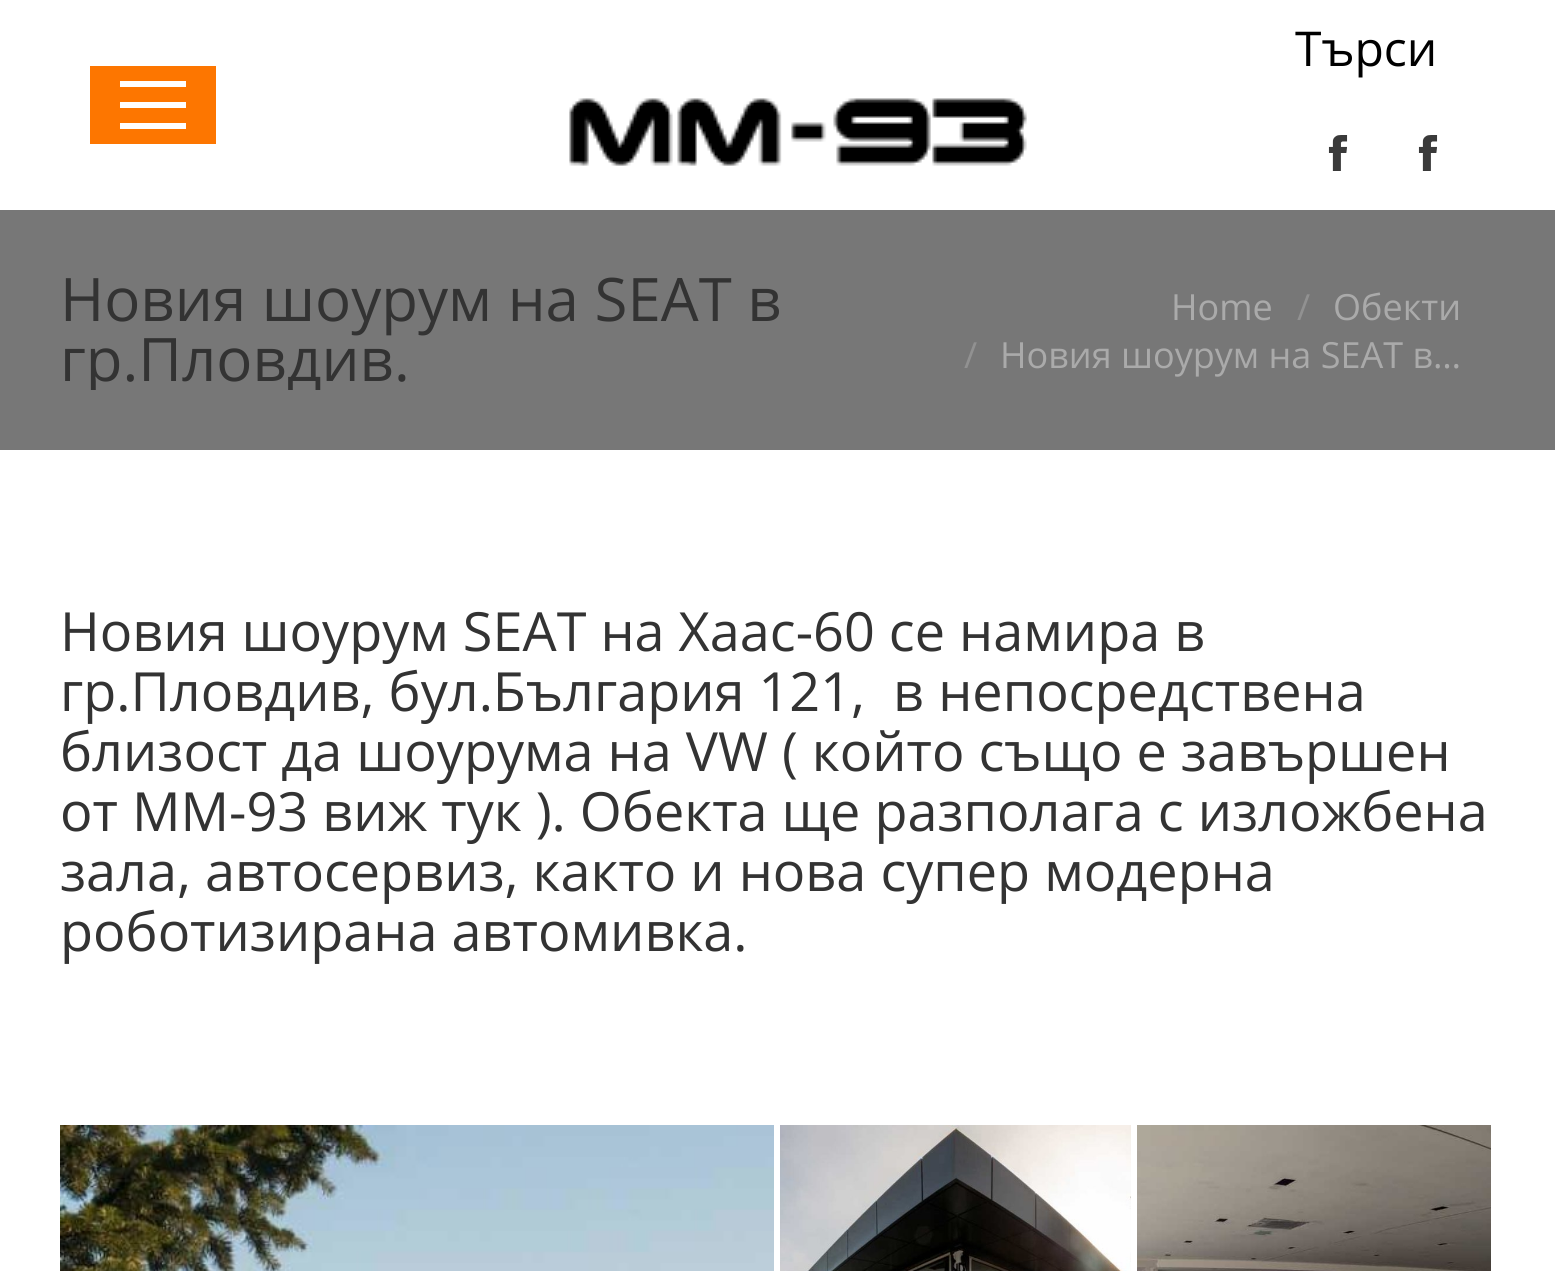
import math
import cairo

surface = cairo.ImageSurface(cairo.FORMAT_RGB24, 1555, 1271)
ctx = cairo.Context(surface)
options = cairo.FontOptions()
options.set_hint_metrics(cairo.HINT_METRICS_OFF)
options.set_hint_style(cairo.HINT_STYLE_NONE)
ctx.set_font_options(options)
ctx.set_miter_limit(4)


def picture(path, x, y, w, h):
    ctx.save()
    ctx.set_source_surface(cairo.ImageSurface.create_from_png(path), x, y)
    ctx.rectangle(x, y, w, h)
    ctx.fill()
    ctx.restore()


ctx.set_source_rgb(1, 1, 1)
ctx.paint()
ctx.select_font_face("Open Sans")
ctx.set_font_size(48)
ctx.set_source_rgb(0, 0, 0)
ctx.move_to(1295, 66)
ctx.show_text("Търси")
picture("img1.png", 1328, 135, 20, 36)
picture("img1.png", 1418, 135, 20, 36)
ctx.set_source_rgb(0.992, 0.463, 0)
ctx.rectangle(90, 66, 126, 78)
ctx.fill()
ctx.set_source_rgb(1, 1, 1)
ctx.rectangle(120, 81, 66, 6)
ctx.fill()
ctx.rectangle(120, 102, 66, 6)
ctx.fill()
ctx.rectangle(120, 123, 66, 6)
ctx.fill()
picture("img2.png", 569, 98, 458, 68)
ctx.set_source_rgb(0.467, 0.467, 0.467)
ctx.rectangle(0, 210, 1555, 240)
ctx.fill()
ctx.set_font_size(60)
ctx.set_source_rgb(0.2, 0.2, 0.2)
ctx.move_to(60, 321)
ctx.show_text("Новия шоурум на SEAT в")
ctx.save()
ctx.rectangle(60, 270, 792, 120)
ctx.clip()
ctx.move_to(60, 381)
ctx.show_text("гр.Пловдив.")
ctx.restore()
ctx.set_font_size(36)
ctx.set_source_rgb(0.667, 0.667, 0.667)
ctx.move_to(1171, 320)
ctx.show_text("Home")
ctx.set_source_rgb(0.569, 0.569, 0.569)
ctx.move_to(1297, 320)
ctx.show_text("/")
ctx.set_source_rgb(0.667, 0.667, 0.667)
ctx.move_to(1333, 320)
ctx.show_text("Обекти")
ctx.set_source_rgb(0.569, 0.569, 0.569)
ctx.move_to(964, 368)
ctx.show_text("/")
ctx.set_source_rgb(0.667, 0.667, 0.667)
ctx.move_to(1000, 368)
ctx.show_text("Новия шоурум на SEAT в…")
ctx.set_font_size(54)
ctx.set_source_rgb(0.2, 0.2, 0.2)
ctx.move_to(60, 651)
ctx.show_text("Новия шоурyм SEAT на Хаас-60 се намира в")
ctx.move_to(60, 711)
ctx.show_text("гр.Пловдив, бул.България 121,  в непосредствена")
ctx.move_to(60, 771)
ctx.show_text("близост да шоурума на VW ( който също е завършен")
ctx.move_to(60, 831)
ctx.show_text("от ММ-93 виж тук ). Обекта ще разполага с изложбена")
ctx.move_to(60, 891)
ctx.show_text("зала, автосервиз, както и нова супер модерна")
ctx.move_to(60, 951)
ctx.show_text("роботизирана автомивка.")
picture("img3.png", 60, 1125, 714, 146)
picture("img4.png", 780, 1125, 351, 146)
picture("img5.png", 1137, 1125, 354, 146)
surface.write_to_png("page.png")
